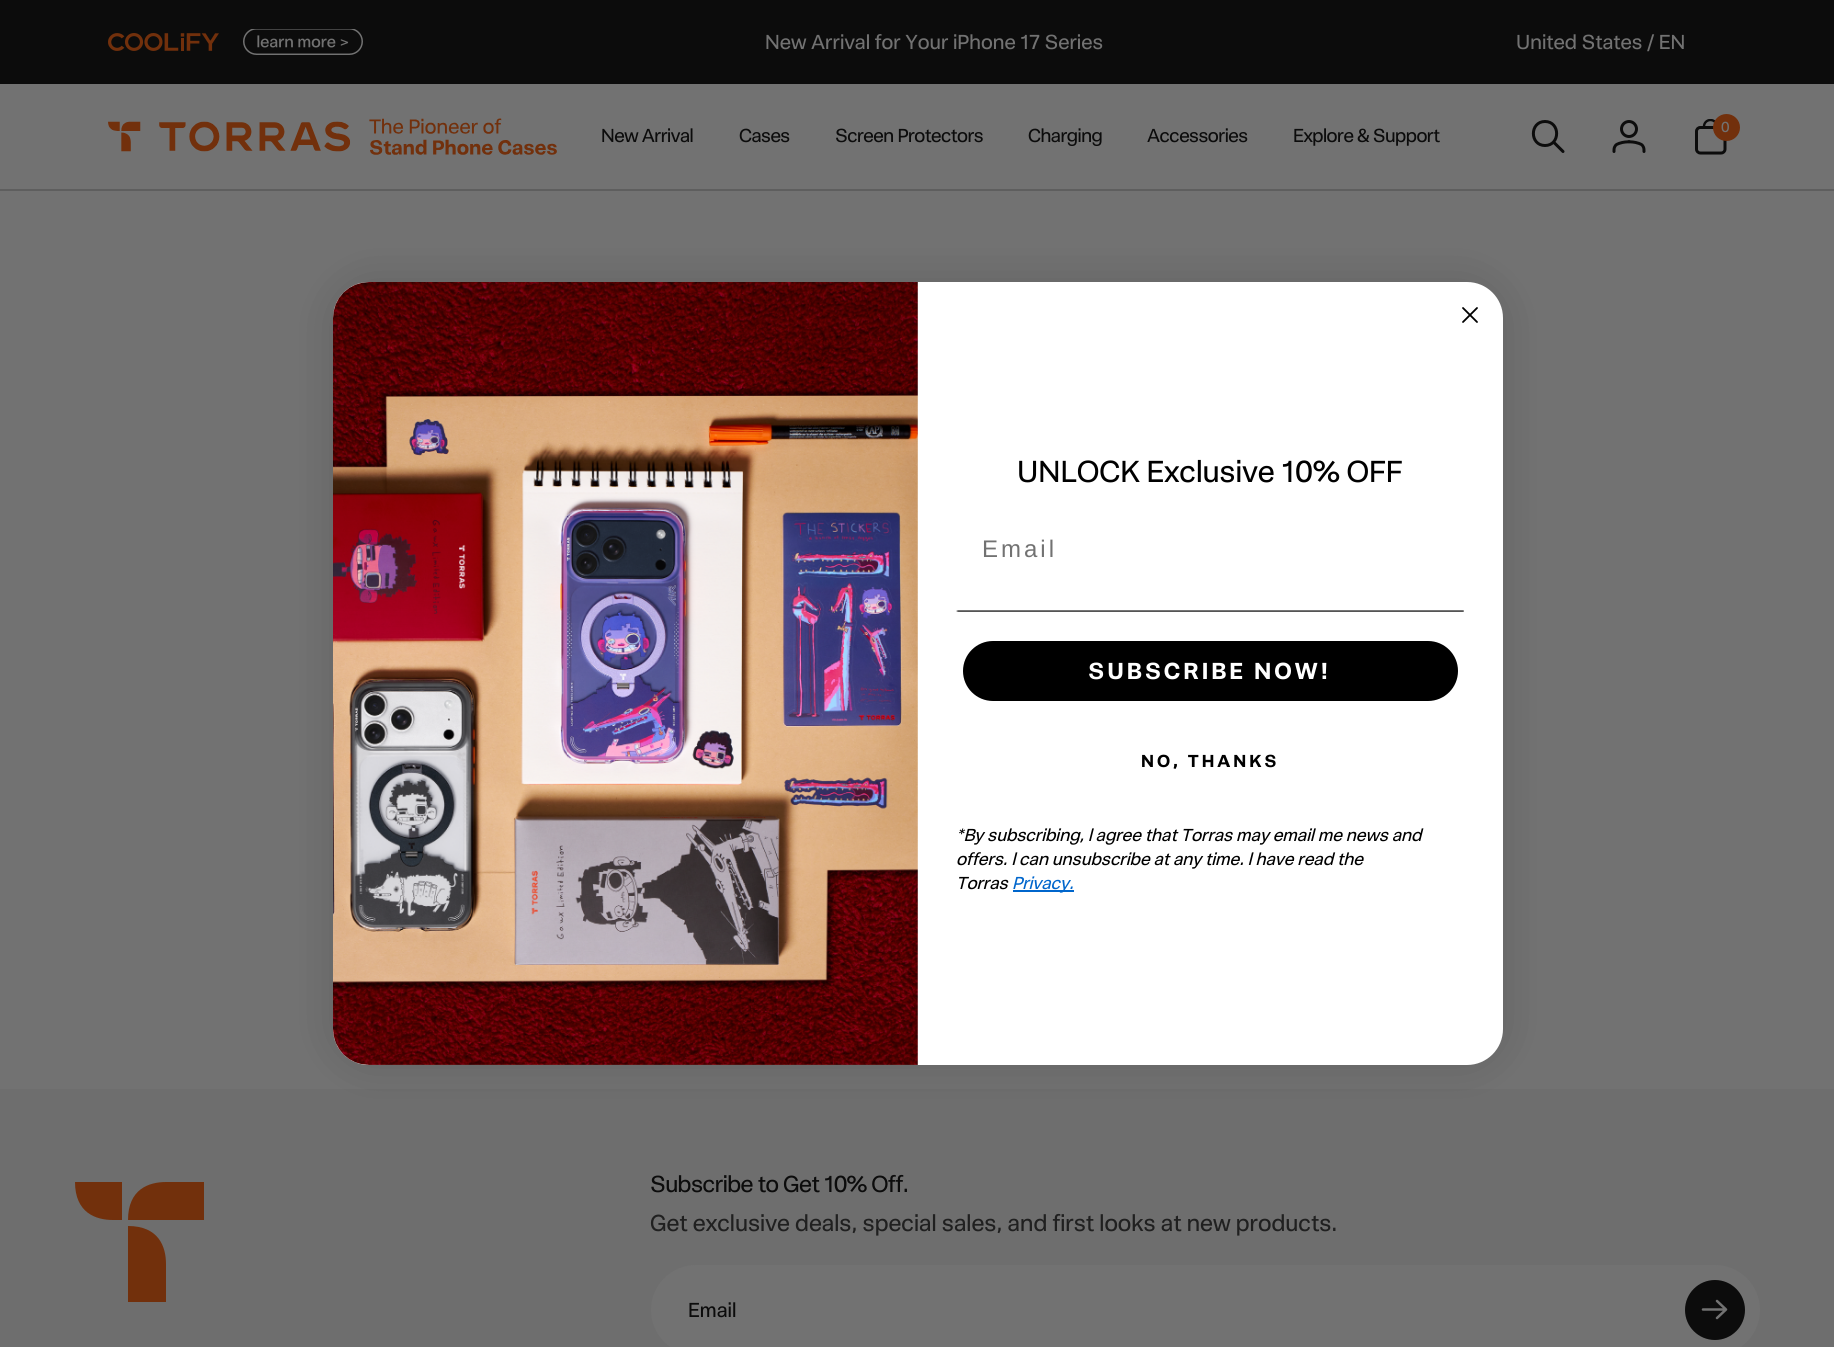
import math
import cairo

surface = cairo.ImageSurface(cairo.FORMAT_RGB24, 1834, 1347)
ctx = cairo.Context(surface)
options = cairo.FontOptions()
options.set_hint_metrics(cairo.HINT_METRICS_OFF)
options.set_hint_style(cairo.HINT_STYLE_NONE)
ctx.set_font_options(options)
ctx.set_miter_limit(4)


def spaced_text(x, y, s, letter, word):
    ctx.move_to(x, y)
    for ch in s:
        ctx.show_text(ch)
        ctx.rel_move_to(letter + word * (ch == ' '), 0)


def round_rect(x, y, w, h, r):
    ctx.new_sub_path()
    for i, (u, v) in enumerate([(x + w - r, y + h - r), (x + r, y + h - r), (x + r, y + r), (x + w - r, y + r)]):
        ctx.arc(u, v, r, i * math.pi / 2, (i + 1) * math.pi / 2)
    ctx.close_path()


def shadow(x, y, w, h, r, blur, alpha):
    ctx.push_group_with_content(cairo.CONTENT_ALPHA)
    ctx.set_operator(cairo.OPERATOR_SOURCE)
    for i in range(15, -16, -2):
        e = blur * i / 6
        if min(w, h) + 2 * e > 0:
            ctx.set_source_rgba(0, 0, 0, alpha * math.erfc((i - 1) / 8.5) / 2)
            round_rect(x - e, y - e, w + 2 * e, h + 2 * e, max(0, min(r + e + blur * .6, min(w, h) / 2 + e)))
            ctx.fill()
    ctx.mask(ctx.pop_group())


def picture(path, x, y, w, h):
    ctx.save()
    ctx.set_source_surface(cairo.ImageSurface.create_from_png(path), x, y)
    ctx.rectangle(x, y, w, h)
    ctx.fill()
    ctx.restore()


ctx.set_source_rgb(0.447, 0.447, 0.447)
ctx.paint()
ctx.set_source_rgb(0.047, 0.047, 0.047)
ctx.rectangle(0, 0, 1834, 84)
ctx.fill()
picture("img1.png", 108, 29, 255, 26)
ctx.select_font_face("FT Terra")
ctx.set_font_size(21)
ctx.set_source_rgb(0.447, 0.447, 0.447)
ctx.move_to(765, 49)
ctx.show_text("New Arrival for Your iPhone 17 Series")
ctx.move_to(1516, 49)
ctx.show_text("United States / EN")
ctx.set_source_rgb(0.369, 0.369, 0.369)
ctx.rectangle(0, 189, 1834, 2)
ctx.fill()
picture("img2.png", 108, 118, 449, 37)
ctx.set_font_size(19.5)
ctx.set_source_rgb(0.047, 0.047, 0.047)
spaced_text(601, 142, "New Arrival", -0.5, 0)
spaced_text(739, 142, "Cases", -0.5, 0)
spaced_text(835, 142, "Screen Protectors", -0.5, 0)
spaced_text(1028, 142, "Charging", -0.5, 0)
spaced_text(1147, 142, "Accessories", -0.5, 0)
spaced_text(1293, 142, "Explore & Support", -0.5, 0)
ctx.new_path()
ctx.move_to(1563, 151.5)
ctx.line_to(1553.5, 142)
ctx.move_to(1545, 145.5)
ctx.curve_to(1560.5, 145.5, 1560.5, 121.5, 1545, 121.5)
ctx.curve_to(1529.5, 121.5, 1529.5, 145.5, 1545, 145.5)
ctx.close_path()
ctx.set_line_width(3)
ctx.set_line_cap(cairo.LINE_CAP_ROUND)
ctx.set_line_join(cairo.LINE_JOIN_ROUND)
ctx.stroke()
picture("img3.png", 1612, 120, 34, 33)
picture("img4.png", 1695, 119, 32, 36)
ctx.set_source_rgb(0.447, 0.188, 0.047)
ctx.arc(1726.5, 127.5, 13.5, 0, 2 * math.pi)
ctx.fill()
ctx.set_font_size(15)
ctx.set_source_rgb(0.447, 0.447, 0.447)
ctx.move_to(1721, 132)
ctx.show_text("0")
ctx.set_source_rgb(0.431, 0.431, 0.431)
ctx.rectangle(0, 1089, 1834, 258)
ctx.fill()
ctx.set_source_rgb(0, 0, 0)
shadow(333, 282, 1170, 783, 36, 22.5, 0.15)
ctx.set_source_rgb(1, 1, 1)
round_rect(333, 282, 1170, 783, 36)
ctx.fill()
ctx.new_path()
ctx.move_to(1463, 308)
ctx.line_to(1477, 322)
ctx.move_to(1463, 322)
ctx.line_to(1477, 308)
ctx.close_path()
ctx.set_source_rgb(0, 0, 0)
ctx.set_line_width(1.8)
ctx.stroke()
picture("img5.png", 333, 282, 585, 783)
ctx.set_font_size(31.5)
ctx.move_to(1017, 482)
ctx.show_text("UNLOCK Exclusive 10% OFF")
ctx.select_font_face("Liberation Sans")
ctx.set_font_size(24)
ctx.set_source_rgb(0.447, 0.447, 0.447)
spaced_text(982, 557, "Email", 3, 0)
picture("img6.png", 956, 610, 508, 2)
ctx.set_source_rgb(0, 0, 0)
round_rect(963, 641, 495, 60, 30)
ctx.fill()
ctx.select_font_face("FT Terra", cairo.FONT_SLANT_NORMAL, cairo.FONT_WEIGHT_BOLD)
ctx.set_source_rgb(1, 1, 1)
spaced_text(1088, 679, "SUBSCRIBE NOW!", 3, 0)
ctx.set_font_size(18)
ctx.set_source_rgb(0, 0, 0)
spaced_text(1141, 767, "NO, THANKS", 3, 0)
ctx.select_font_face("FT Terra", cairo.FONT_SLANT_ITALIC)
ctx.move_to(956, 841)
ctx.show_text("*By subscribing, l agree that Torras may email me news and")
ctx.move_to(956, 865)
ctx.show_text("offers. l can unsubscribe at any time. l have read the")
ctx.move_to(956, 889)
ctx.show_text("Torras")
ctx.set_source_rgb(0, 0.4, 0.8)
ctx.rectangle(1013, 890, 61, 2)
ctx.fill()
ctx.move_to(1012, 889)
ctx.show_text("Privacy.")
ctx.set_source_rgb(0.447, 0.188, 0.047)
ctx.new_path()
ctx.move_to(128, 1226)
ctx.line_to(128, 1302)
ctx.line_to(166, 1302)
ctx.line_to(166, 1264)
ctx.curve_to(166, 1247, 159, 1226, 128, 1226)
ctx.close_path()
ctx.move_to(166, 1182)
ctx.curve_to(149, 1182, 128, 1189, 128, 1220)
ctx.line_to(204, 1220)
ctx.line_to(204, 1182)
ctx.close_path()
ctx.move_to(113, 1220)
ctx.line_to(122, 1220)
ctx.line_to(122, 1182)
ctx.line_to(75, 1182)
ctx.curve_to(75, 1213, 96, 1220, 113, 1220)
ctx.close_path()
ctx.fill()
ctx.select_font_face("FT Terra")
ctx.set_font_size(24)
ctx.set_source_rgb(0.047, 0.047, 0.047)
spaced_text(650, 1192, "Subscribe to Get 10% Off.", -0.5, 0)
ctx.set_source_rgb(0.125, 0.125, 0.125)
ctx.move_to(650, 1231)
ctx.show_text("Get exclusive deals, special sales, and first looks at new products.")
ctx.set_source_rgb(0.447, 0.447, 0.447)
round_rect(651, 1265, 1109, 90, 45)
ctx.fill()
ctx.set_font_size(21)
ctx.set_source_rgb(0.047, 0.047, 0.047)
ctx.move_to(688, 1317)
ctx.show_text("Email")
ctx.new_path()
ctx.arc(1715, 1310, 30, 0, 2 * math.pi)
ctx.fill()
ctx.new_path()
ctx.move_to(1717, 1301)
ctx.line_to(1726, 1309.5)
ctx.move_to(1726, 1309.5)
ctx.line_to(1717, 1318)
ctx.move_to(1726, 1309.5)
ctx.line_to(1703, 1309.5)
ctx.set_source_rgb(0.447, 0.447, 0.447)
ctx.set_line_width(2.5)
ctx.stroke()
surface.write_to_png("page.png")
